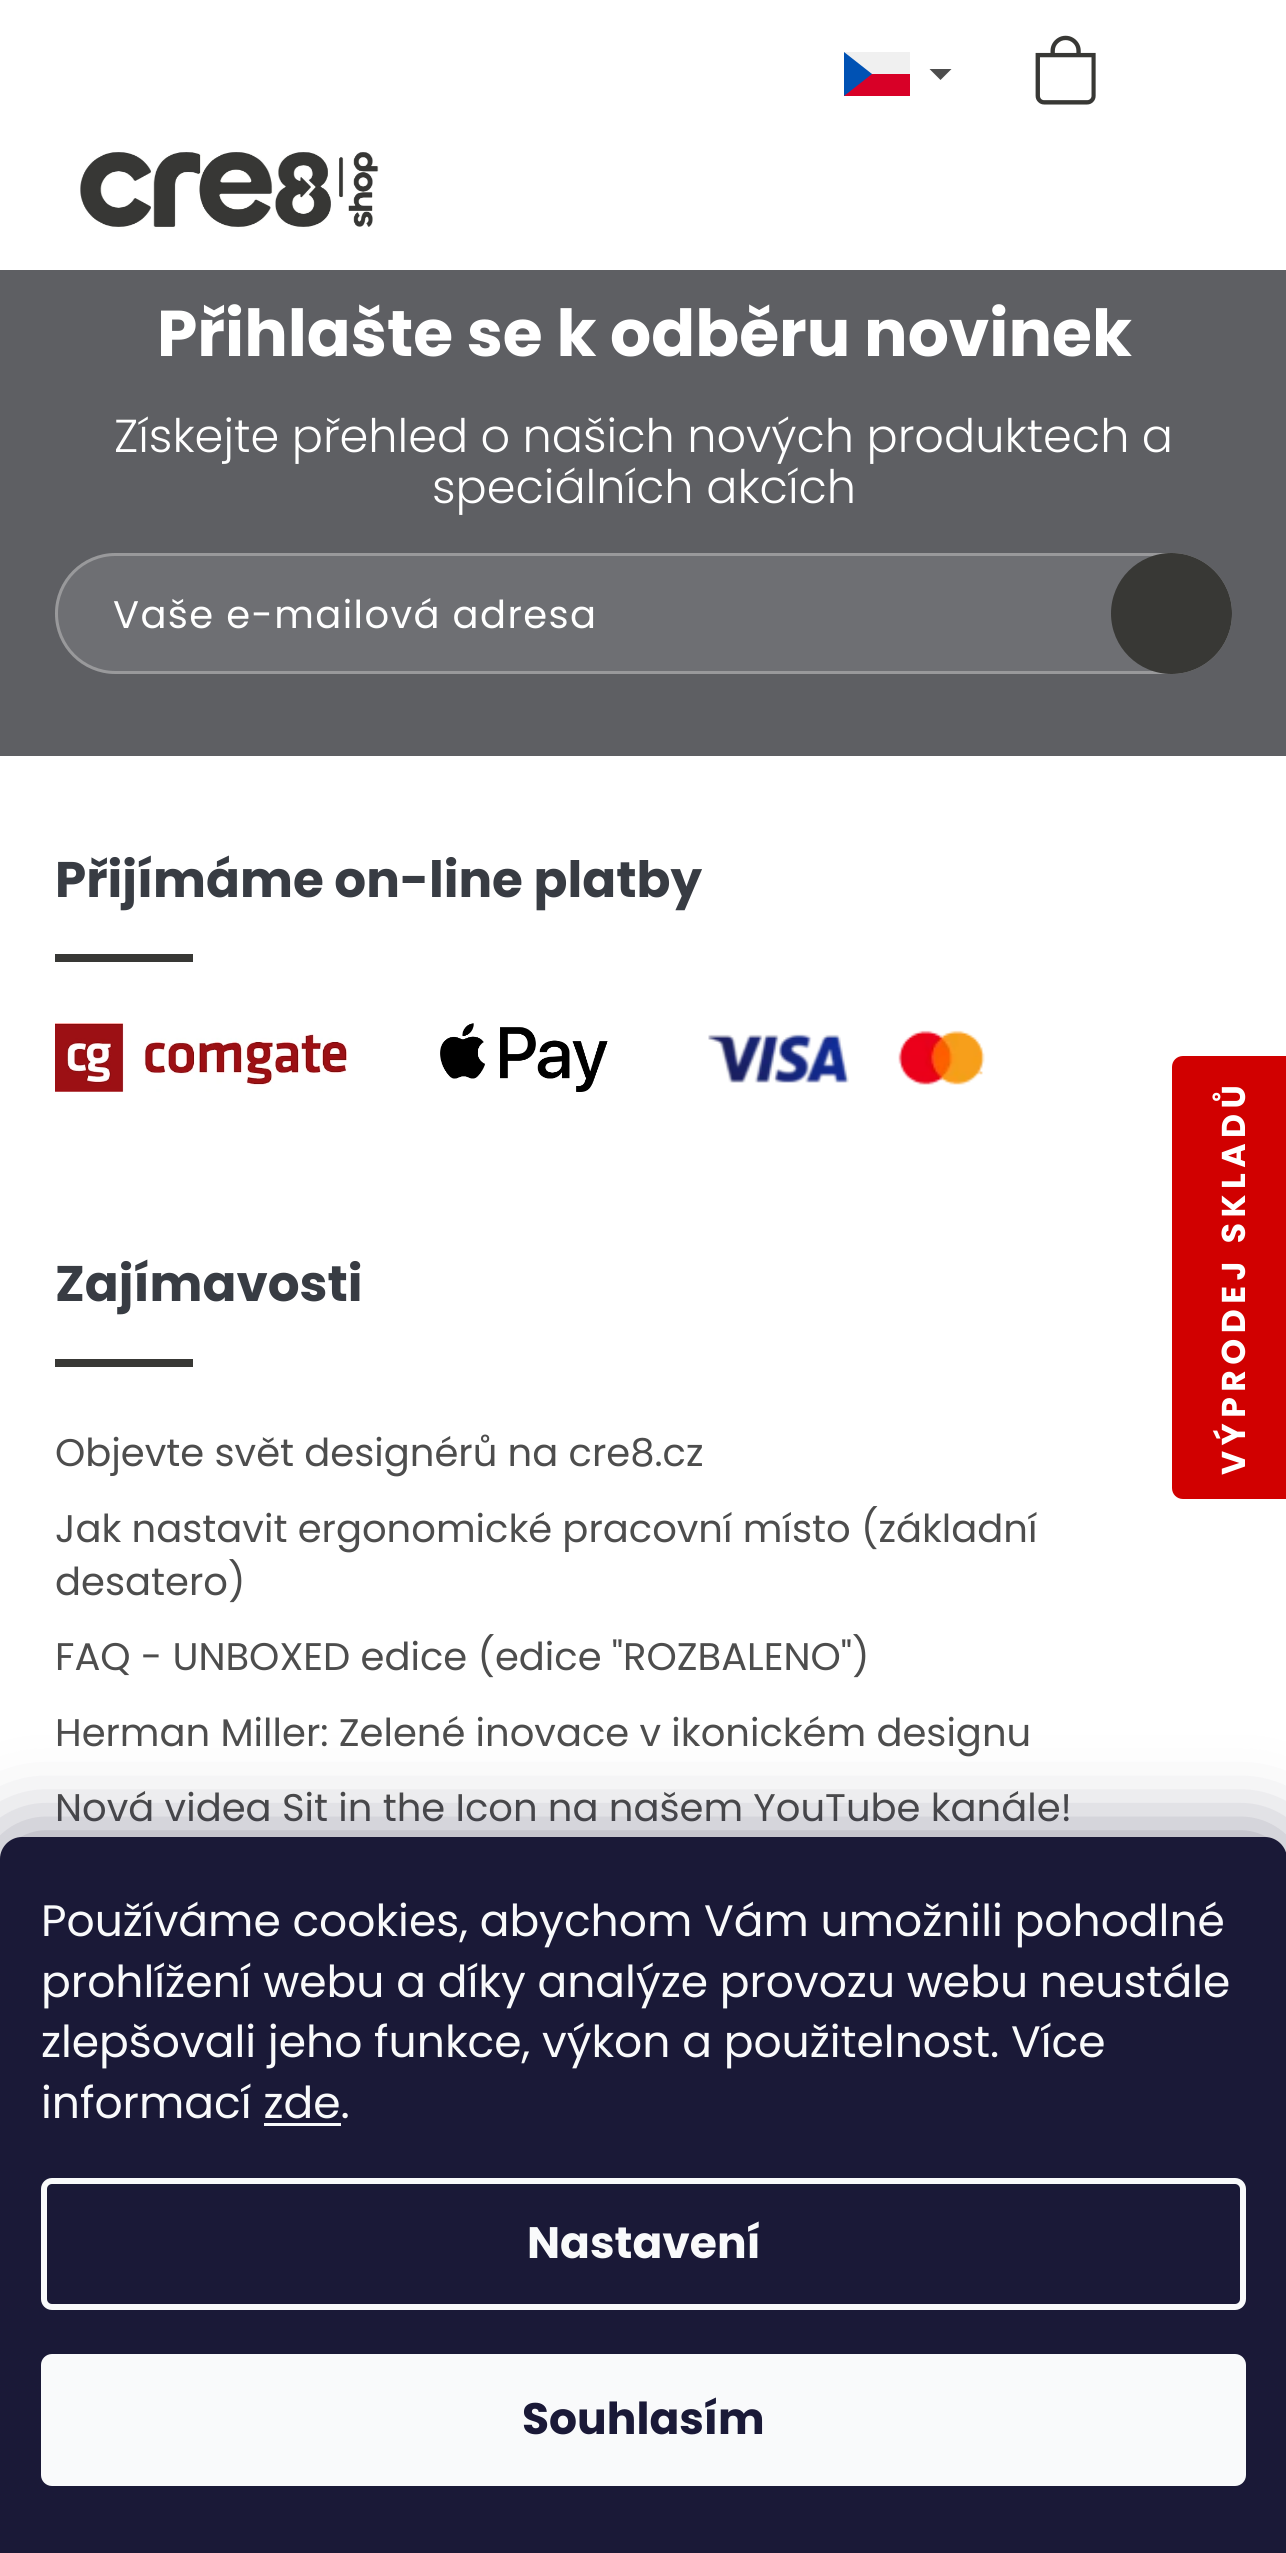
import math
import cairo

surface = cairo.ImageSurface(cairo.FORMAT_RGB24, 1286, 2553)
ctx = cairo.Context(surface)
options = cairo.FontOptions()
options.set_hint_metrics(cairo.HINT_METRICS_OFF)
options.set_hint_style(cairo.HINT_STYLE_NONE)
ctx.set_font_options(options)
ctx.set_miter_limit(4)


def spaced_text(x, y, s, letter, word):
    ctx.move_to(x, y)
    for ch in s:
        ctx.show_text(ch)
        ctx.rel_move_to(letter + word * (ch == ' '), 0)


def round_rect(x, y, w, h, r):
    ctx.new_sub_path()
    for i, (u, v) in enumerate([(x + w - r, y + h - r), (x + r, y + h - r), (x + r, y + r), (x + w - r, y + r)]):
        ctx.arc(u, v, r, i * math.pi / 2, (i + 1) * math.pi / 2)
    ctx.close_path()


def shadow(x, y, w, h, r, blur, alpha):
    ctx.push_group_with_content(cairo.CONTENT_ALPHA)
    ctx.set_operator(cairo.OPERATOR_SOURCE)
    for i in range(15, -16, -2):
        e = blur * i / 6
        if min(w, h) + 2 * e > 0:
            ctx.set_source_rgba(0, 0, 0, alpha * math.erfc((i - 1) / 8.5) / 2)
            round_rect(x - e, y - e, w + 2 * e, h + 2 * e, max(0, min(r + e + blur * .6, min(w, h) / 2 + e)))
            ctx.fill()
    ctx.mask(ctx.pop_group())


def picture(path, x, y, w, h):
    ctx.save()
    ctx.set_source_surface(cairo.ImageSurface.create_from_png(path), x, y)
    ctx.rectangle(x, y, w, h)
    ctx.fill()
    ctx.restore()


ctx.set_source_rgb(1, 1, 1)
ctx.paint()
picture("img1.png", 1035, 35, 61, 70)
picture("img2.png", 80, 152, 299, 77)
ctx.set_source_rgb(0, 0.322, 0.706)
ctx.rectangle(844, 52, 28, 44)
ctx.fill()
ctx.set_source_rgb(0.847, 0, 0.153)
ctx.new_path()
ctx.move_to(910, 74)
ctx.line_to(910, 96)
ctx.line_to(844, 96)
ctx.line_to(872, 74)
ctx.close_path()
ctx.fill()
ctx.set_source_rgb(0.941, 0.941, 0.941)
ctx.new_path()
ctx.move_to(910, 52)
ctx.line_to(910, 74)
ctx.line_to(872, 74)
ctx.line_to(844, 52)
ctx.close_path()
ctx.fill()
ctx.set_source_rgb(0.302, 0.302, 0.302)
ctx.new_path()
ctx.move_to(929.5, 69)
ctx.line_to(951.5, 69)
ctx.line_to(940.5, 80)
ctx.close_path()
ctx.fill()
ctx.set_source_rgb(0.369, 0.373, 0.388)
ctx.rectangle(0, 270, 1286, 486)
ctx.fill()
ctx.select_font_face("Poppins", cairo.FONT_SLANT_NORMAL, cairo.FONT_WEIGHT_BOLD)
ctx.set_font_size(64.7)
ctx.set_source_rgb(1, 1, 1)
ctx.move_to(157, 356)
ctx.show_text("Přihlašte se k odběru novinek")
ctx.select_font_face("Poppins Light")
ctx.set_font_size(46.2)
spaced_text(114, 452, "Získejte přehled o našich nových produktech a", 0, -0.25)
ctx.move_to(432, 503)
ctx.show_text("speciálních akcích")
ctx.set_source_rgb(0.431, 0.435, 0.451)
round_rect(55, 553, 1177, 121, 60.5)
ctx.fill()
round_rect(56.5, 554.5, 1174, 118, 59)
ctx.set_source_rgba(0.769, 0.769, 0.769, 0.5)
ctx.set_line_width(3)
ctx.stroke()
ctx.select_font_face("Poppins")
ctx.set_font_size(38.5)
ctx.set_source_rgb(1, 1, 1)
spaced_text(113, 628, "Vaše e-mailová adresa", 1.4, 0)
ctx.set_source_rgb(0.22, 0.22, 0.208)
ctx.new_path()
ctx.arc(1171.5, 613.5, 60.5, 0, 2 * math.pi)
ctx.fill()
ctx.select_font_face("Poppins", cairo.FONT_SLANT_NORMAL, cairo.FONT_WEIGHT_BOLD)
ctx.set_font_size(50)
ctx.set_source_rgb(0.22, 0.235, 0.263)
ctx.move_to(55, 897)
ctx.show_text("Přijímáme on-line platby")
ctx.set_source_rgb(0.22, 0.22, 0.208)
ctx.rectangle(55, 954, 138, 8)
ctx.fill()
picture("img3.png", 55, 1023, 292, 69)
picture("img4.png", 440, 1023, 168, 69)
picture("img5.png", 708, 1030, 277, 55)
ctx.set_source_rgb(0.22, 0.235, 0.263)
ctx.move_to(55, 1301)
ctx.show_text("Zajímavosti")
ctx.set_source_rgb(0.22, 0.22, 0.208)
ctx.rectangle(55, 1359, 138, 8)
ctx.fill()
ctx.select_font_face("Poppins")
ctx.set_font_size(38.5)
ctx.set_source_rgb(0.302, 0.302, 0.302)
ctx.move_to(55, 1466)
ctx.show_text("Objevte svět designérů na cre8.cz")
ctx.move_to(55, 1542)
ctx.show_text("Jak nastavit ergonomické pracovní místo (základní")
ctx.move_to(55, 1595)
ctx.show_text("desatero)")
ctx.move_to(55, 1670)
ctx.show_text("FAQ - UNBOXED edice (edice \"ROZBALENO\")")
ctx.move_to(55, 1746)
ctx.show_text("Herman Miller: Zelené inovace v ikonickém designu")
ctx.move_to(55, 1821)
ctx.show_text("Nová videa Sit in the Icon na našem YouTube kanále!")
ctx.set_source_rgb(0.82, 0, 0)
ctx.rectangle(1182, 1067, 104, 421)
ctx.fill()
ctx.set_fill_rule(cairo.FILL_RULE_EVEN_ODD)
ctx.new_path()
ctx.move_to(1185, 1062)
ctx.line_to(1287, 1062)
ctx.line_to(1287, 1494)
ctx.line_to(1185, 1494)
ctx.curve_to(1181, 1494, 1177, 1490, 1177, 1485)
ctx.line_to(1177, 1070)
ctx.curve_to(1177, 1066, 1181, 1062, 1185, 1062)
ctx.close_path()
ctx.move_to(1185, 1067)
ctx.line_to(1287, 1067)
ctx.line_to(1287, 1488)
ctx.line_to(1185, 1488)
ctx.curve_to(1184, 1488, 1182, 1487, 1182, 1485)
ctx.line_to(1182, 1070)
ctx.curve_to(1182, 1069, 1184, 1067, 1185, 1067)
ctx.close_path()
ctx.fill()
ctx.new_path()
ctx.move_to(1183, 1060)
ctx.line_to(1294, 1060)
ctx.line_to(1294, 1495)
ctx.line_to(1183, 1495)
ctx.curve_to(1179, 1495, 1176, 1492, 1176, 1488)
ctx.line_to(1176, 1067)
ctx.curve_to(1176, 1063, 1179, 1060, 1183, 1060)
ctx.close_path()
ctx.set_line_width(8)
ctx.stroke()
ctx.select_font_face("Poppins", cairo.FONT_SLANT_NORMAL, cairo.FONT_WEIGHT_BOLD)
ctx.set_font_size(33)
ctx.set_source_rgb(1, 1, 1)
ctx.save()
ctx.translate(1245, 1475)
ctx.rotate(-90 * math.pi / 180)
spaced_text(0, 0, "VÝPRODEJ SKLADŮ", 5.5, 0)
ctx.restore()
ctx.set_source_rgb(0.106, 0.098, 0.224)
shadow(0, 1837, 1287, 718, 22, 41, 0.5)
ctx.set_source_rgb(0.102, 0.098, 0.216)
ctx.new_path()
ctx.move_to(22, 1837)
ctx.line_to(1265, 1837)
ctx.curve_to(1277, 1837, 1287, 1847, 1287, 1859)
ctx.line_to(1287, 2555)
ctx.line_to(0, 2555)
ctx.line_to(0, 1859)
ctx.curve_to(0, 1847, 10, 1837, 22, 1837)
ctx.close_path()
ctx.fill()
ctx.select_font_face("Poppins")
ctx.set_font_size(44)
ctx.set_source_rgb(0.973, 0.98, 0.984)
ctx.move_to(41, 1936)
ctx.show_text("Používáme cookies, abychom Vám umožnili pohodlné")
ctx.move_to(41, 1997)
ctx.show_text("prohlížení webu a díky analýze provozu webu neustále")
ctx.move_to(41, 2057)
ctx.show_text("zlepšovali jeho funkce, výkon a použitelnost. Více")
ctx.move_to(41, 2118)
ctx.show_text("informací zde.")
ctx.rectangle(264, 2123, 77, 3)
ctx.fill()
round_rect(44, 2181, 1199, 126, 8)
ctx.set_line_width(6)
ctx.stroke()
ctx.select_font_face("Poppins", cairo.FONT_SLANT_NORMAL, cairo.FONT_WEIGHT_BOLD)
ctx.move_to(527, 2258)
ctx.show_text("Nastavení")
round_rect(41, 2354, 1205, 132, 11)
ctx.fill()
ctx.set_source_rgb(0.102, 0.098, 0.216)
ctx.move_to(522, 2434)
ctx.show_text("Souhlasím")
surface.write_to_png("page.png")
